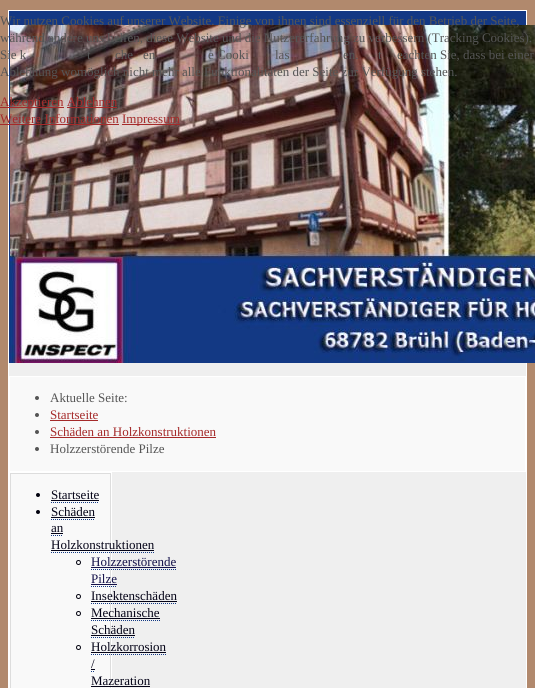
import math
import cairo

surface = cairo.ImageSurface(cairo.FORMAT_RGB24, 535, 688)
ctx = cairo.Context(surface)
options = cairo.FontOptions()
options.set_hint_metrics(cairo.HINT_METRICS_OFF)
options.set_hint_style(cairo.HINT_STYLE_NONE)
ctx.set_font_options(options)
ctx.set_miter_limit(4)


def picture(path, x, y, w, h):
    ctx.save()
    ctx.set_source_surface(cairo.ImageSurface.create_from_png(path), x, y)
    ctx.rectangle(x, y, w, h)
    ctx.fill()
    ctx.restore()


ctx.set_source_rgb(0.694, 0.537, 0.427)
ctx.paint()
ctx.set_source_rgb(0.937, 0.937, 0.937)
ctx.rectangle(9, 363, 517, 325)
ctx.fill()
ctx.rectangle(8.5, 10.5, 518, 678)
ctx.set_source_rgb(1, 1, 1)
ctx.set_line_width(1)
ctx.stroke()
ctx.set_source_rgb(0.075, 0.22, 0.518)
ctx.rectangle(9, 11, 517, 352)
ctx.fill()
picture("img1.png", 10, 25, 525, 338)
ctx.select_font_face("Liberation Serif")
ctx.set_font_size(13)
ctx.set_source_rgb(0.333, 0.333, 0.333)
ctx.move_to(0, 25)
ctx.show_text("Wir nutzen Cookies auf unserer Website. Einige von ihnen sind essenziell für den Betrieb der Seite,")
ctx.move_to(0, 42)
ctx.show_text("während andere uns helfen, diese Website und die Nutzererfahrung zu verbessern (Tracking Cookies).")
ctx.move_to(0, 59)
ctx.show_text("Sie k")
ctx.move_to(87, 59)
ctx.show_text("t")
ctx.move_to(115, 59)
ctx.show_text("che")
ctx.move_to(143, 59)
ctx.show_text("en")
ctx.move_to(208, 59)
ctx.show_text("e Cooki")
ctx.move_to(275, 59)
ctx.show_text("las")
ctx.move_to(343, 59)
ctx.show_text("en.")
ctx.move_to(378, 59)
ctx.show_text("t")
ctx.move_to(397, 59)
ctx.show_text("eachten Sie, dass bei einer")
ctx.move_to(0, 76)
ctx.show_text("Ablehnung womöglich nicht mehr alle Funktionalitäten der Seite zur Verfügung stehen.")
ctx.set_source_rgb(0.647, 0.165, 0.165)
ctx.rectangle(0, 107, 64, 1)
ctx.fill()
ctx.move_to(0, 106)
ctx.show_text("Akzeptieren Ablehnen")
ctx.rectangle(67, 107, 50, 1)
ctx.fill()
ctx.move_to(0, 123)
ctx.show_text("Weitere Informationen")
ctx.rectangle(0, 124, 119, 1)
ctx.fill()
ctx.rectangle(122, 124, 58, 1)
ctx.fill()
ctx.move_to(122, 123)
ctx.show_text("Impressum")
ctx.set_source_rgb(0.976, 0.976, 0.976)
ctx.rectangle(9.5, 376.5, 516, 95)
ctx.fill_preserve()
ctx.set_source_rgb(1, 1, 1)
ctx.stroke()
ctx.set_source_rgb(0.333, 0.333, 0.333)
ctx.arc(37, 398, 2, 0, 2 * math.pi)
ctx.fill()
ctx.move_to(50, 402)
ctx.show_text("Aktuelle Seite:")
ctx.new_path()
ctx.arc(37, 415, 2, 0, 2 * math.pi)
ctx.fill()
ctx.set_source_rgb(0.647, 0.165, 0.165)
ctx.move_to(50, 419)
ctx.show_text("Startseite")
ctx.rectangle(50, 420, 48, 1)
ctx.fill()
ctx.set_source_rgb(0.333, 0.333, 0.333)
ctx.arc(37, 432, 2, 0, 2 * math.pi)
ctx.fill()
ctx.set_source_rgb(0.647, 0.165, 0.165)
ctx.move_to(50, 436)
ctx.show_text("Schäden an Holzkonstruktionen")
ctx.rectangle(50, 437, 166, 1)
ctx.fill()
ctx.set_source_rgb(0.333, 0.333, 0.333)
ctx.arc(37, 449, 2, 0, 2 * math.pi)
ctx.fill()
ctx.move_to(50, 453)
ctx.show_text("Holzzerstörende Pilze")
ctx.rectangle(9.5, 472.5, 102, 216)
ctx.set_source_rgb(1, 1, 1)
ctx.stroke()
ctx.set_source_rgb(0.976, 0.976, 0.976)
ctx.rectangle(10.5, 473.5, 100, 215)
ctx.fill_preserve()
ctx.set_source_rgb(0.867, 0.867, 0.867)
ctx.stroke()
ctx.set_source_rgb(0.008, 0.008, 0.059)
ctx.arc(38, 495, 2, 0, 2 * math.pi)
ctx.fill()
ctx.set_source_rgb(0.016, 0.012, 0.09)
ctx.move_to(51, 499)
ctx.show_text("Startseite")
ctx.new_path()
ctx.move_to(51, 502.5)
ctx.line_to(99, 502.5)
ctx.set_source_rgb(0.075, 0.224, 0.518)
ctx.set_dash([1, 1])
ctx.stroke()
ctx.set_source_rgb(0.016, 0.012, 0.09)
ctx.rectangle(51, 500, 48, 1)
ctx.fill()
ctx.set_source_rgb(0.008, 0.008, 0.059)
ctx.arc(38, 512, 2, 0, 2 * math.pi)
ctx.fill()
ctx.set_source_rgb(0.016, 0.012, 0.09)
ctx.move_to(51, 516)
ctx.show_text("Schäden")
ctx.rectangle(51, 517, 44, 1)
ctx.fill()
ctx.new_path()
ctx.move_to(51, 519.5)
ctx.line_to(95, 519.5)
ctx.move_to(51, 535.5)
ctx.line_to(63, 535.5)
ctx.set_source_rgb(0.075, 0.224, 0.518)
ctx.stroke()
ctx.set_source_rgb(0.016, 0.012, 0.09)
ctx.move_to(51, 532)
ctx.show_text("an")
ctx.rectangle(51, 533, 12, 1)
ctx.fill()
ctx.move_to(51, 549)
ctx.show_text("Holzkonstruktionen")
ctx.new_path()
ctx.move_to(51, 552.5)
ctx.line_to(154, 552.5)
ctx.set_source_rgb(0.075, 0.224, 0.518)
ctx.stroke()
ctx.set_source_rgb(0.016, 0.012, 0.09)
ctx.rectangle(51, 550, 103, 1)
ctx.fill()
ctx.arc(78.5, 562.5, 2, 0, 2 * math.pi)
ctx.set_source_rgb(0.008, 0.008, 0.059)
ctx.set_dash([])
ctx.stroke()
ctx.set_source_rgb(0.082, 0.067, 0.29)
ctx.move_to(91, 566)
ctx.show_text("Holzzerstörende")
ctx.new_path()
ctx.move_to(91, 569.5)
ctx.line_to(176, 569.5)
ctx.set_source_rgb(0.075, 0.224, 0.518)
ctx.set_dash([1, 1])
ctx.stroke()
ctx.set_source_rgb(0.082, 0.067, 0.29)
ctx.rectangle(91, 567, 85, 1)
ctx.fill()
ctx.move_to(91, 583)
ctx.show_text("Pilze")
ctx.new_path()
ctx.move_to(91, 586.5)
ctx.line_to(117, 586.5)
ctx.set_source_rgb(0.075, 0.224, 0.518)
ctx.stroke()
ctx.set_source_rgb(0.082, 0.067, 0.29)
ctx.rectangle(91, 584, 26, 1)
ctx.fill()
ctx.arc(78.5, 596.5, 2, 0, 2 * math.pi)
ctx.set_source_rgb(0.008, 0.008, 0.059)
ctx.set_dash([])
ctx.stroke()
ctx.set_source_rgb(0.016, 0.012, 0.09)
ctx.move_to(91, 600)
ctx.show_text("Insektenschäden")
ctx.new_path()
ctx.move_to(91, 603.5)
ctx.line_to(177, 603.5)
ctx.set_source_rgb(0.075, 0.224, 0.518)
ctx.set_dash([1, 1])
ctx.stroke()
ctx.set_source_rgb(0.016, 0.012, 0.09)
ctx.rectangle(91, 601, 86, 1)
ctx.fill()
ctx.arc(78.5, 613.5, 2, 0, 2 * math.pi)
ctx.set_source_rgb(0.008, 0.008, 0.059)
ctx.set_dash([])
ctx.stroke()
ctx.set_source_rgb(0.016, 0.012, 0.09)
ctx.move_to(91, 617)
ctx.show_text("Mechanische")
ctx.new_path()
ctx.move_to(91, 620.5)
ctx.line_to(160, 620.5)
ctx.set_source_rgb(0.075, 0.224, 0.518)
ctx.set_dash([1, 1])
ctx.stroke()
ctx.set_source_rgb(0.016, 0.012, 0.09)
ctx.rectangle(91, 618, 69, 1)
ctx.fill()
ctx.move_to(91, 634)
ctx.show_text("Schäden")
ctx.new_path()
ctx.move_to(91, 637.5)
ctx.line_to(135, 637.5)
ctx.set_source_rgb(0.075, 0.224, 0.518)
ctx.stroke()
ctx.set_source_rgb(0.016, 0.012, 0.09)
ctx.rectangle(91, 635, 44, 1)
ctx.fill()
ctx.arc(78.5, 647.5, 2, 0, 2 * math.pi)
ctx.set_source_rgb(0.008, 0.008, 0.059)
ctx.set_dash([])
ctx.stroke()
ctx.set_source_rgb(0.016, 0.012, 0.09)
ctx.move_to(91, 651)
ctx.show_text("Holzkorrosion")
ctx.new_path()
ctx.move_to(91, 654.5)
ctx.line_to(166, 654.5)
ctx.set_source_rgb(0.075, 0.224, 0.518)
ctx.set_dash([1, 1])
ctx.stroke()
ctx.set_source_rgb(0.016, 0.012, 0.09)
ctx.rectangle(91, 652, 75, 1)
ctx.fill()
ctx.move_to(91, 668)
ctx.show_text("/")
ctx.new_path()
ctx.move_to(91, 671.5)
ctx.line_to(92, 671.5)
ctx.move_to(93, 671.5)
ctx.line_to(94, 671.5)
ctx.set_source_rgb(0.075, 0.224, 0.518)
ctx.set_dash([])
ctx.stroke()
ctx.set_source_rgb(0.016, 0.012, 0.09)
ctx.rectangle(91, 669, 4, 1)
ctx.fill()
ctx.move_to(91, 685)
ctx.show_text("Mazeration")
ctx.rectangle(91, 686, 59, 1)
ctx.fill()
surface.write_to_png("page.png")
